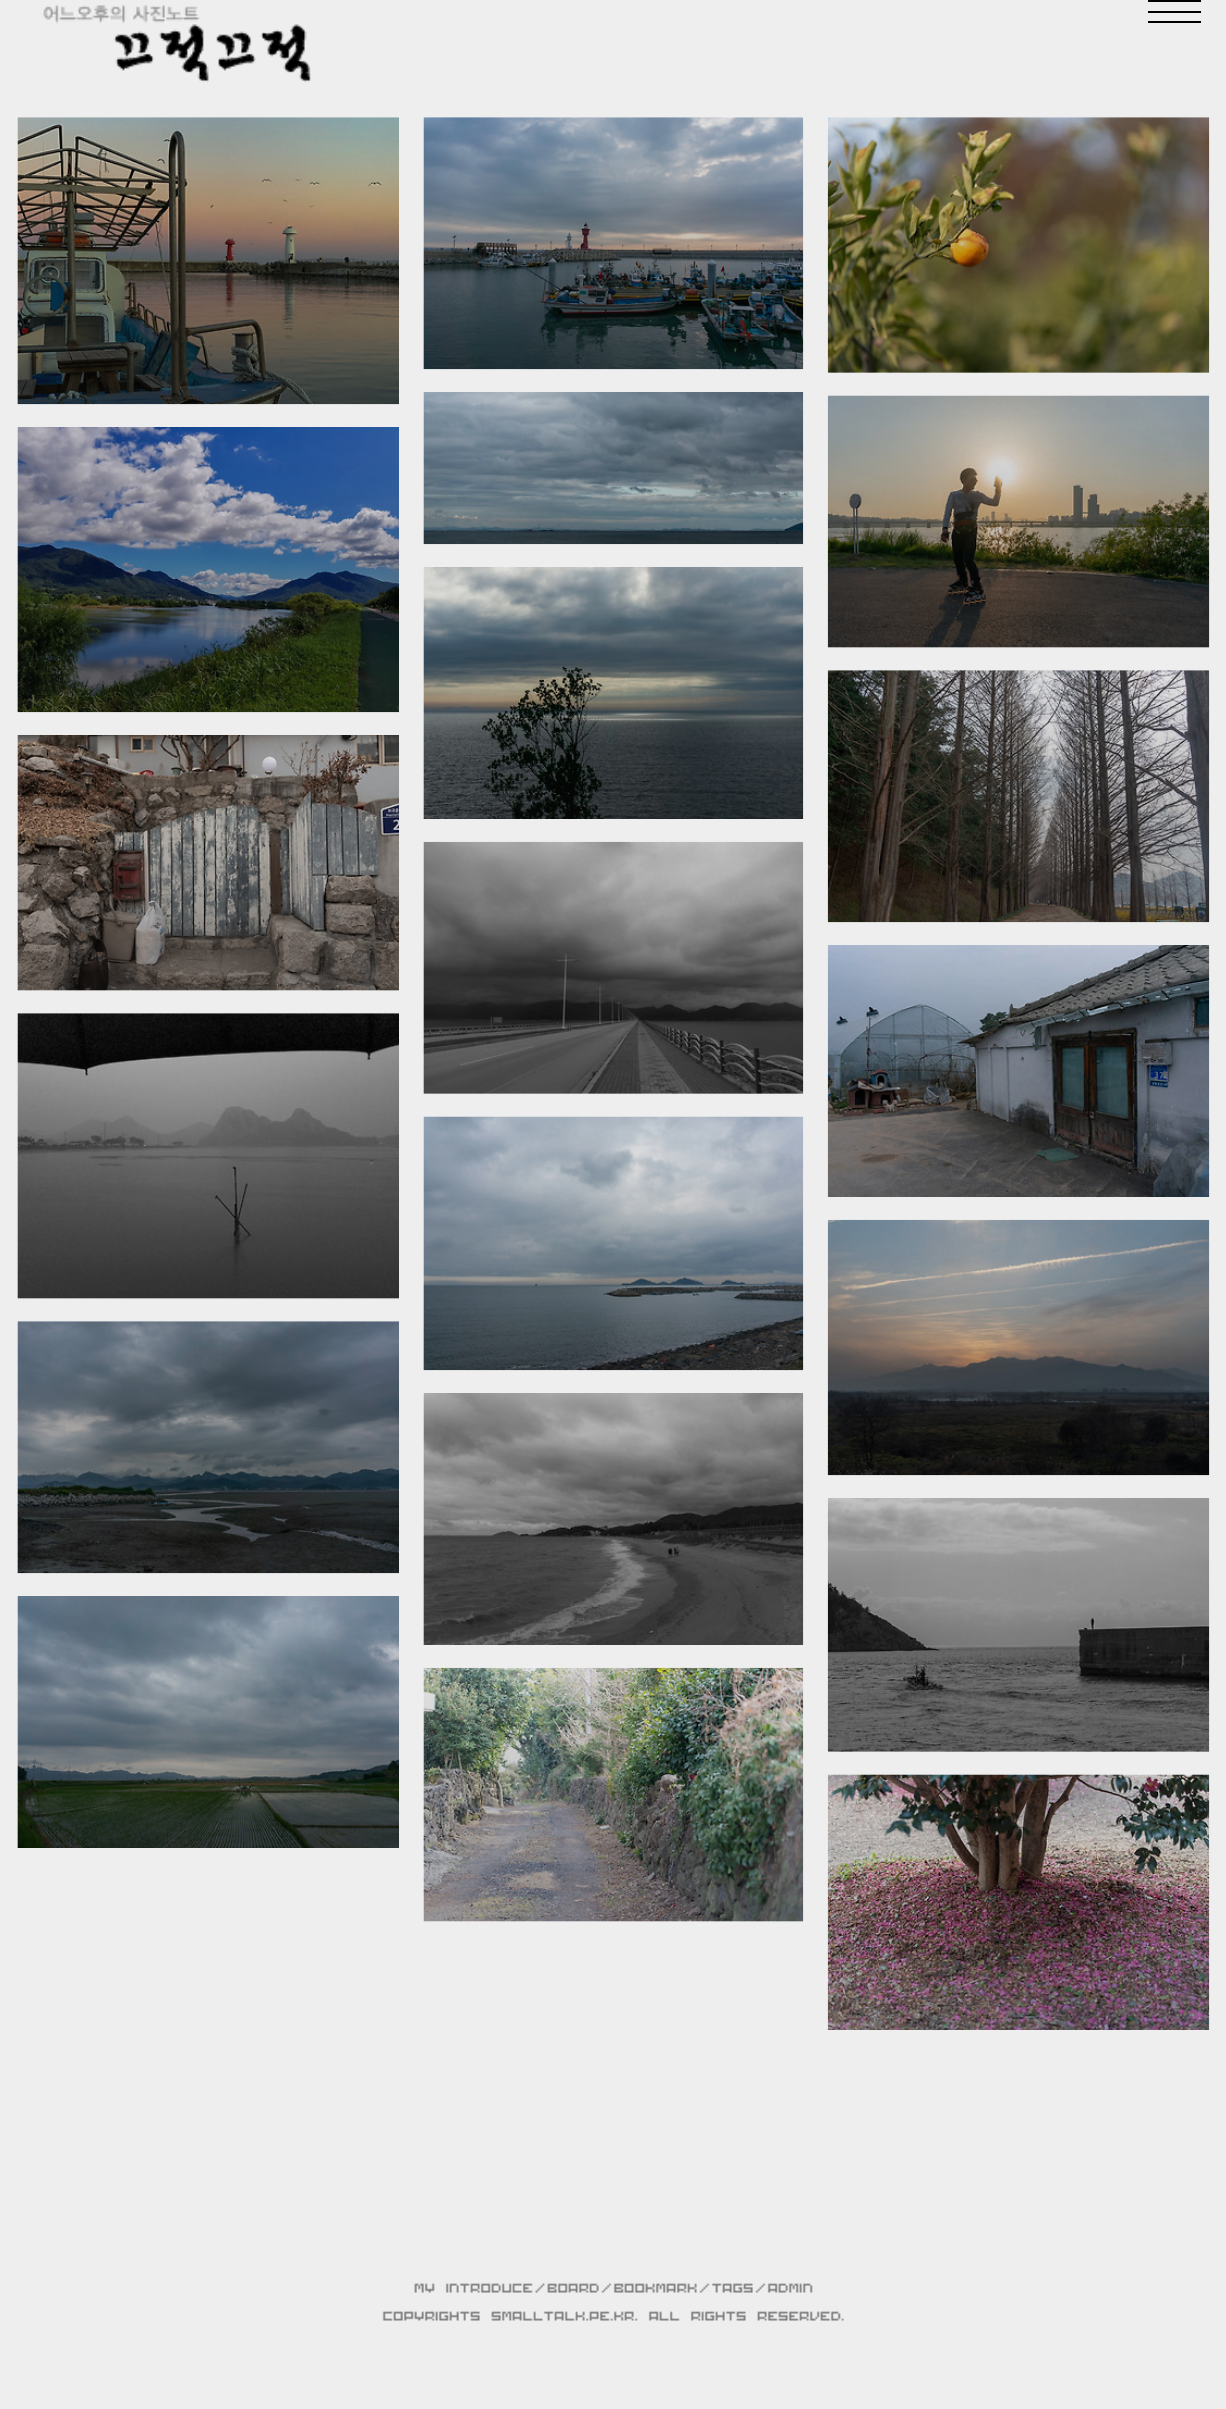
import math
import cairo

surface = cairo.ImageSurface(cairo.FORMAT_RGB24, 1226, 2409)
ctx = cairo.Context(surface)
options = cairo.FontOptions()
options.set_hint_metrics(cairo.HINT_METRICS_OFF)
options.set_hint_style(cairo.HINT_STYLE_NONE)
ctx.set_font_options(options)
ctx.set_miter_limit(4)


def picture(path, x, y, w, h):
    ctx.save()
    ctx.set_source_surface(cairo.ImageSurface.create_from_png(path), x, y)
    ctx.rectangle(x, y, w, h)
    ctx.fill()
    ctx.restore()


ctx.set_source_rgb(0.933, 0.933, 0.933)
ctx.paint()
picture("img1.png", 43, 5, 268, 78)
ctx.set_source_rgb(0, 0, 0)
ctx.rectangle(1148, 0, 53, 2)
ctx.fill()
ctx.rectangle(1148, 11, 53, 2)
ctx.fill()
ctx.rectangle(1148, 21, 53, 2)
ctx.fill()
picture("img2.png", 17, 117, 382, 288)
picture("img3.png", 17, 117, 382, 288)
picture("img4.png", 423, 117, 381, 253)
picture("img5.png", 423, 117, 381, 253)
picture("img6.png", 827, 117, 383, 256)
picture("img7.png", 827, 117, 383, 256)
picture("img8.png", 17, 427, 382, 286)
picture("img9.png", 17, 427, 382, 286)
picture("img10.png", 423, 392, 381, 153)
picture("img11.png", 423, 392, 380, 152)
picture("img12.png", 827, 395, 383, 253)
picture("img13.png", 827, 395, 383, 253)
picture("img14.png", 17, 735, 382, 256)
picture("img15.png", 17, 735, 382, 256)
picture("img16.png", 423, 567, 381, 252)
picture("img17.png", 423, 567, 381, 252)
picture("img18.png", 827, 670, 383, 253)
picture("img19.png", 827, 670, 383, 253)
picture("img20.png", 17, 1013, 382, 286)
picture("img21.png", 17, 1013, 382, 286)
picture("img22.png", 423, 841, 381, 253)
picture("img23.png", 423, 842, 381, 252)
picture("img24.png", 827, 945, 383, 252)
picture("img25.png", 827, 945, 383, 252)
picture("img26.png", 17, 1321, 382, 253)
picture("img27.png", 17, 1321, 382, 253)
picture("img28.png", 423, 1116, 381, 255)
picture("img29.png", 423, 1116, 381, 255)
picture("img30.png", 827, 1219, 383, 257)
picture("img31.png", 827, 1220, 383, 256)
picture("img32.png", 17, 1596, 382, 252)
picture("img33.png", 17, 1596, 382, 252)
picture("img34.png", 423, 1393, 381, 252)
picture("img35.png", 423, 1393, 381, 252)
picture("img36.png", 827, 1498, 383, 254)
picture("img37.png", 827, 1498, 383, 254)
picture("img38.png", 423, 1667, 381, 255)
picture("img39.png", 423, 1668, 381, 254)
picture("img40.png", 827, 1774, 383, 256)
picture("img41.png", 827, 1774, 383, 256)
picture("img42.png", 414, 2283, 119, 10)
picture("img43.png", 535, 2283, 10, 10)
picture("img44.png", 547, 2283, 52, 10)
picture("img45.png", 601, 2283, 11, 10)
picture("img46.png", 613, 2283, 84, 10)
picture("img45.png", 699, 2283, 11, 10)
picture("img47.png", 711, 2283, 42, 10)
picture("img48.png", 755, 2283, 11, 10)
picture("img49.png", 767, 2283, 46, 10)
picture("img50.png", 382, 2311, 462, 10)
surface.write_to_png("page.png")
